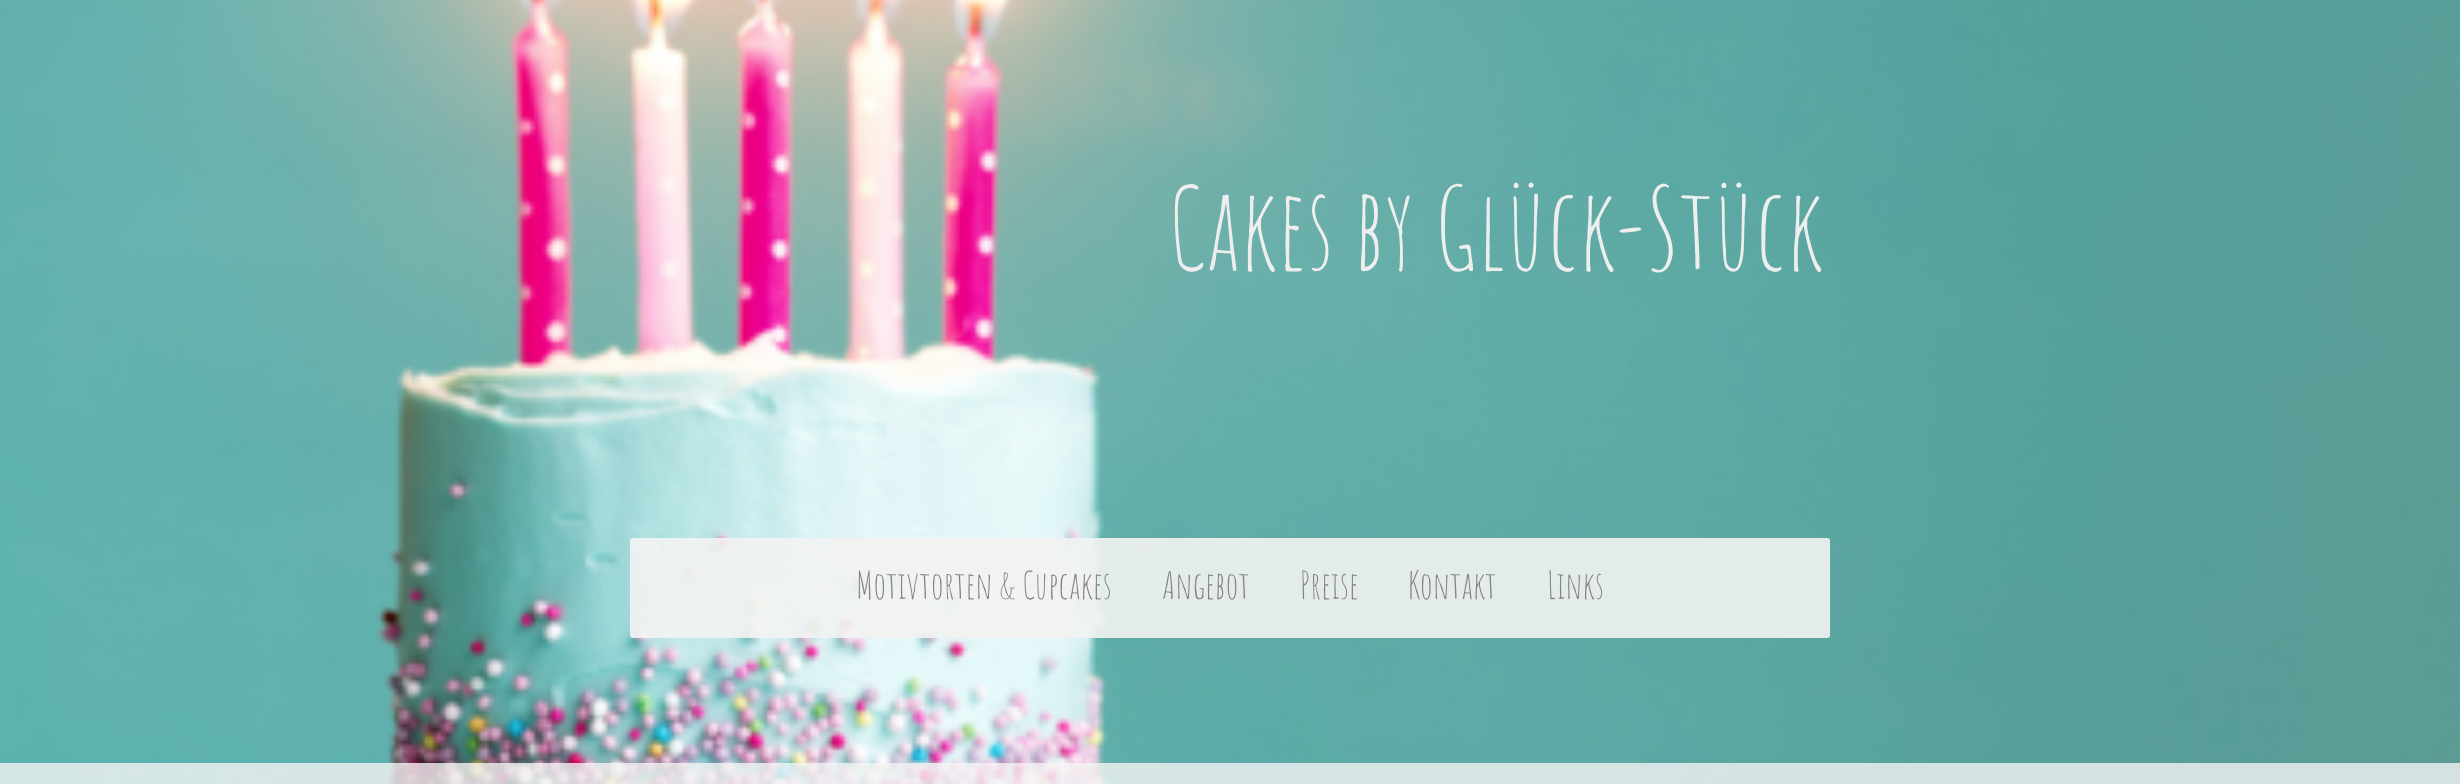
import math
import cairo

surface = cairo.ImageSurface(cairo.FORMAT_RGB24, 2460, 784)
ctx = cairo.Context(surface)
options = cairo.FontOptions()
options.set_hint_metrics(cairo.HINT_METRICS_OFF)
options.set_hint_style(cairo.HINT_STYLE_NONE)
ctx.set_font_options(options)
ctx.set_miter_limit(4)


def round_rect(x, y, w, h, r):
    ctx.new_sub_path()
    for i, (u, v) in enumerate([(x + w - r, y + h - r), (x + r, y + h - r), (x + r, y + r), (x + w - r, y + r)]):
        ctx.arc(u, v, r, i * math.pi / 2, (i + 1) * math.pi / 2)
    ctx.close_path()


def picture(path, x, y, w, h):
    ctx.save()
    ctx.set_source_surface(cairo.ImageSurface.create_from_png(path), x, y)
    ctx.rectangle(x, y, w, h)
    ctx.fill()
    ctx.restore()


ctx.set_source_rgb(1, 1, 1)
ctx.paint()
picture("img1.png", 0, 0, 2460, 784)
ctx.select_font_face("Amatic SC")
ctx.set_font_size(112.5)
ctx.set_source_rgb(0.933, 0.933, 0.933)
ctx.move_to(1168, 270)
ctx.show_text("Cakes by Glück-Stück")
ctx.set_source_rgba(0.953, 0.953, 0.953, 0.9)
round_rect(630, 538, 1200, 100, 2.5)
ctx.fill()
ctx.set_font_size(37.5)
ctx.set_source_rgb(0.51, 0.51, 0.51)
ctx.move_to(856, 599)
ctx.show_text("Motivtorten & Cupcakes")
ctx.move_to(1162, 599)
ctx.show_text("Angebot")
ctx.move_to(1300, 599)
ctx.show_text("Preise")
ctx.move_to(1408, 599)
ctx.show_text("Kontakt")
ctx.move_to(1547, 599)
ctx.show_text("Links")
ctx.set_source_rgba(0.953, 0.953, 0.953, 0.8)
ctx.rectangle(0, 763, 2460, 21)
ctx.fill()
surface.write_to_png("page.png")
